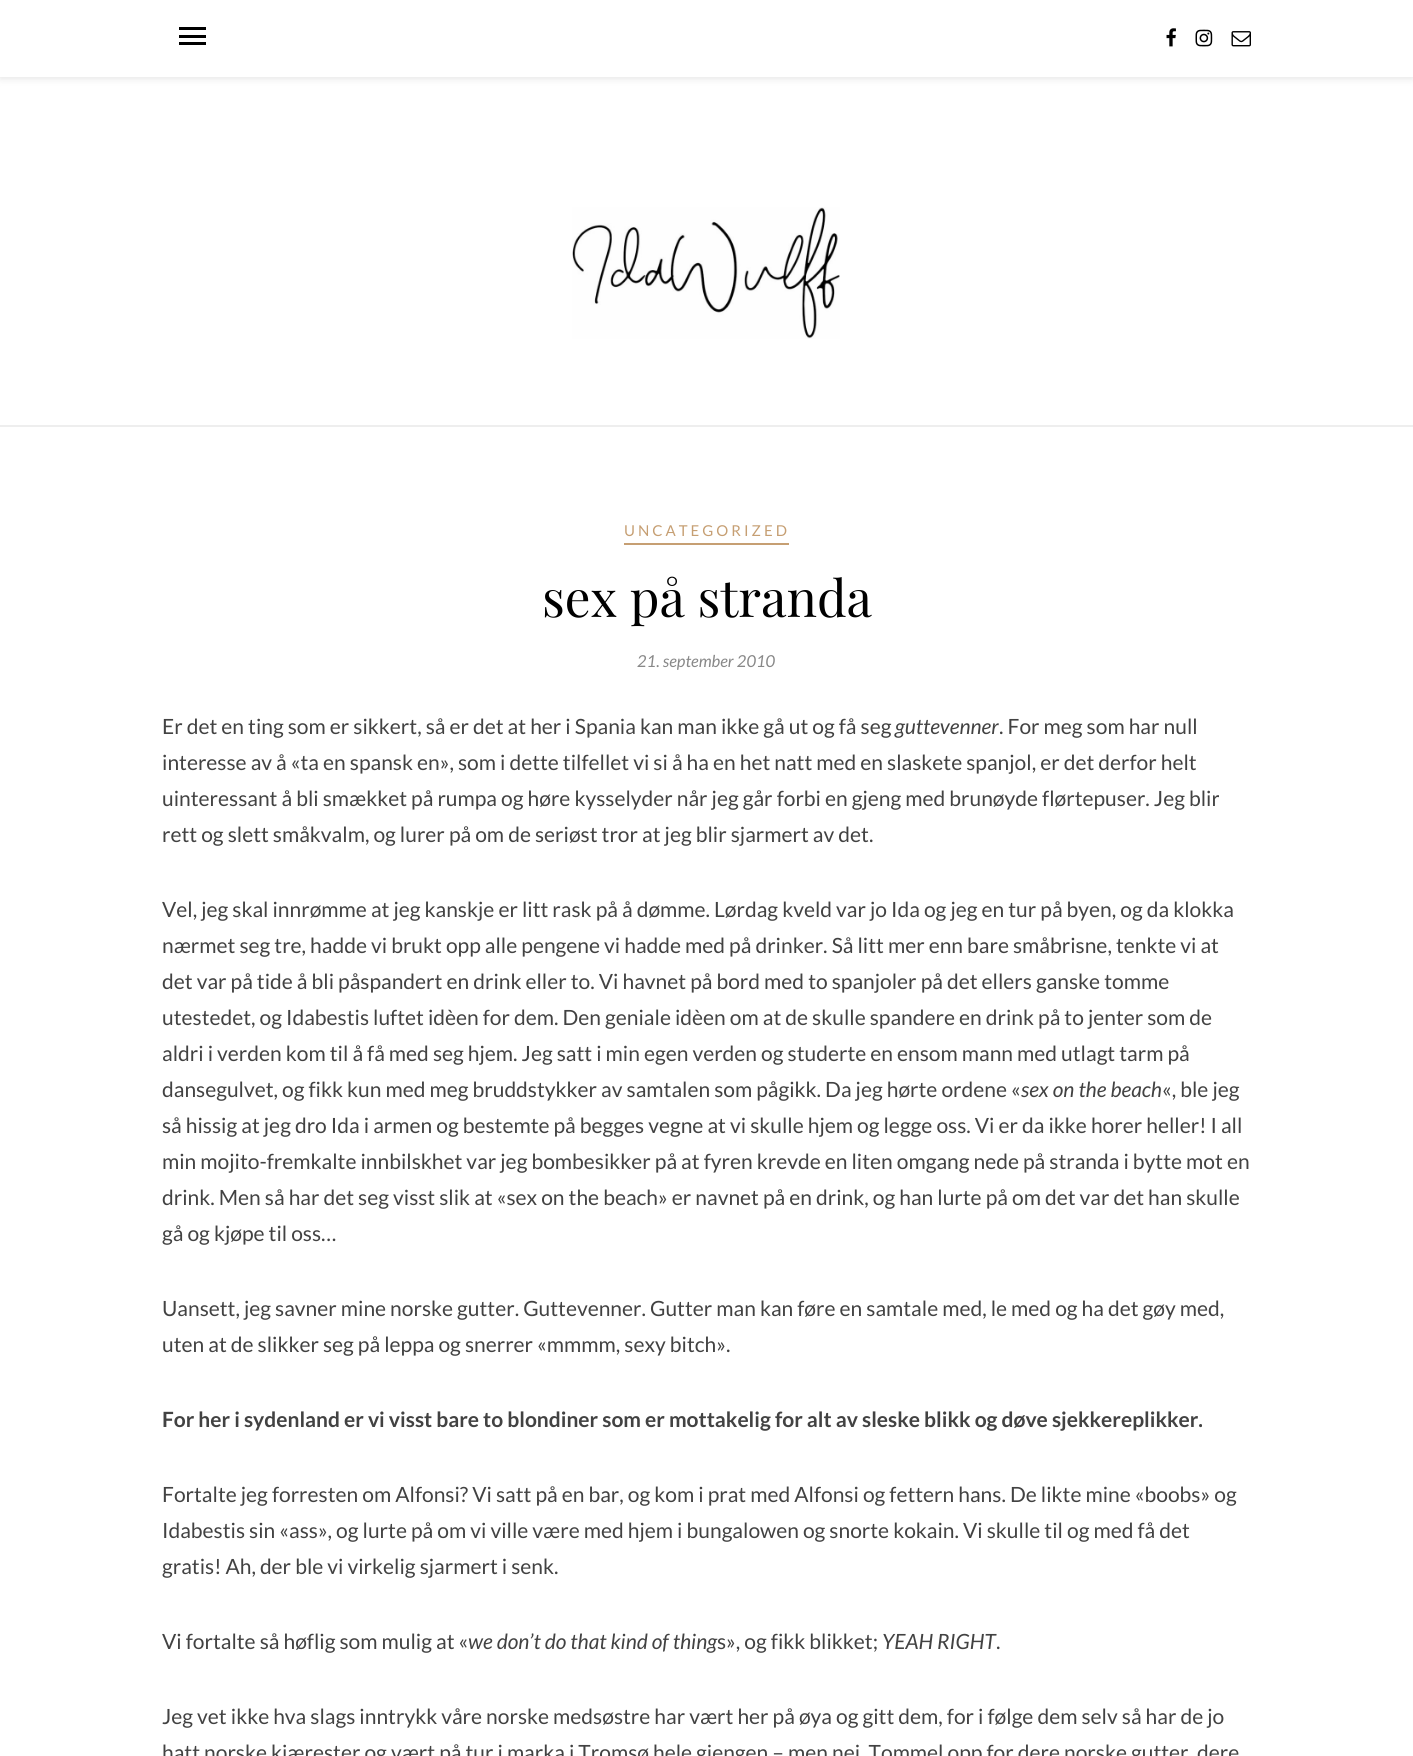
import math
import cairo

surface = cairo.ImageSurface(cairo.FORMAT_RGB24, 1413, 1756)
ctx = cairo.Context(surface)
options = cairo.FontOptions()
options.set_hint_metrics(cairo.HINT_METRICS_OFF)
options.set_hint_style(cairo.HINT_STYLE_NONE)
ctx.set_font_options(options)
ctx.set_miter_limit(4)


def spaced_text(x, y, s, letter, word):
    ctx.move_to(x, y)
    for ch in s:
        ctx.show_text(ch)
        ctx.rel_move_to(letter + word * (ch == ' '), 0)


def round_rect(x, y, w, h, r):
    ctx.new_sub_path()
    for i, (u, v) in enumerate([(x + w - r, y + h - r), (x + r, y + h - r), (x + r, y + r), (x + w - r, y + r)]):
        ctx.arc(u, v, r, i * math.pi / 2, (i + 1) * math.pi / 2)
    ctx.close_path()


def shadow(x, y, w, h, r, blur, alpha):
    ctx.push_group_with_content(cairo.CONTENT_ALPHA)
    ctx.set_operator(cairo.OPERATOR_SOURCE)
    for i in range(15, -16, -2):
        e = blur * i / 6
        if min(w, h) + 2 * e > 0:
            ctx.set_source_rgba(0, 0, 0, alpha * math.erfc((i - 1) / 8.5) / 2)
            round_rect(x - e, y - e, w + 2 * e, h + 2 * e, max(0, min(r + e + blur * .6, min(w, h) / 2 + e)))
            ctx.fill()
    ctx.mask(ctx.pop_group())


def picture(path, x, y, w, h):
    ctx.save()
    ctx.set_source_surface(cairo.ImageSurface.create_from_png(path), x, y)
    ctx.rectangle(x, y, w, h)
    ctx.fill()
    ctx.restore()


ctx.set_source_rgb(1, 1, 1)
ctx.paint()
ctx.set_source_rgb(0.745, 0.745, 0.745)
shadow(0, 2, 1413, 76, 0, 4, 0.46)
ctx.set_source_rgb(1, 1, 1)
ctx.rectangle(0, 0, 1413, 77)
ctx.fill()
ctx.set_source_rgb(0, 0, 0)
ctx.rectangle(179, 27, 27, 3)
ctx.fill()
ctx.rectangle(179, 35, 27, 3)
ctx.fill()
ctx.rectangle(179, 42, 27, 3)
ctx.fill()
picture("img1.png", 1166, 28, 10, 19)
picture("img2.png", 1195, 29, 18, 18)
picture("img3.png", 1231, 31, 20, 16)
ctx.set_source_rgb(0.933, 0.933, 0.933)
ctx.rectangle(0, 425, 1413, 2)
ctx.fill()
picture("img4.png", 572, 207, 268, 132)
ctx.set_source_rgb(0.776, 0.624, 0.451)
ctx.rectangle(624, 543, 165, 2)
ctx.fill()
ctx.select_font_face("Lato")
ctx.set_font_size(15)
spaced_text(624, 536, "UNCATEGORIZED", 3, 0)
ctx.select_font_face("Playfair Display")
ctx.set_font_size(51)
ctx.set_source_rgb(0, 0, 0)
ctx.move_to(542, 617)
ctx.show_text("sex på stranda")
ctx.select_font_face("Lato", cairo.FONT_SLANT_ITALIC)
ctx.set_font_size(16.5)
ctx.set_source_rgb(0.533, 0.533, 0.533)
ctx.move_to(637, 667)
ctx.show_text("21. september 2010")
ctx.select_font_face("Lato")
ctx.set_font_size(21)
ctx.set_source_rgb(0.259, 0.259, 0.259)
ctx.move_to(162, 734)
ctx.show_text("Er det en ting som er sikkert, så er det at her i Spania kan man ikke gå ut og få seg")
ctx.select_font_face("Lato", cairo.FONT_SLANT_ITALIC)
ctx.move_to(895, 734)
ctx.show_text("guttevenner")
ctx.select_font_face("Lato")
ctx.move_to(999, 734)
ctx.show_text(". For meg som har null")
ctx.move_to(162, 770)
ctx.show_text("interesse av å «ta en spansk en», som i dette tilfellet vi si å ha en het natt med en slaskete spanjol, er det derfor helt")
ctx.move_to(162, 806)
ctx.show_text("uinteressant å bli smækket på rumpa og høre kysselyder når jeg går forbi en gjeng med brunøyde flørtepuser. Jeg blir")
ctx.move_to(162, 842)
ctx.show_text("rett og slett småkvalm, og lurer på om de seriøst tror at jeg blir sjarmert av det.")
ctx.move_to(162, 917)
ctx.show_text("Vel, jeg skal innrømme at jeg kanskje er litt rask på å dømme. Lørdag kveld var jo Ida og jeg en tur på byen, og da klokka")
ctx.move_to(162, 953)
ctx.show_text("nærmet seg tre, hadde vi brukt opp alle pengene vi hadde med på drinker. Så litt mer enn bare småbrisne, tenkte vi at")
ctx.move_to(162, 989)
ctx.show_text("det var på tide å bli påspandert en drink eller to. Vi havnet på bord med to spanjoler på det ellers ganske tomme")
ctx.move_to(162, 1025)
ctx.show_text("utestedet, og Idabestis luftet idèen for dem. Den geniale idèen om at de skulle spandere en drink på to jenter som de")
ctx.move_to(162, 1061)
ctx.show_text("aldri i verden kom til å få med seg hjem. Jeg satt i min egen verden og studerte en ensom mann med utlagt tarm på")
ctx.move_to(162, 1097)
ctx.show_text("dansegulvet, og fikk kun med meg bruddstykker av samtalen som pågikk. Da jeg hørte ordene «")
ctx.select_font_face("Lato", cairo.FONT_SLANT_ITALIC)
ctx.move_to(1021, 1097)
ctx.show_text("sex on the beach")
ctx.select_font_face("Lato")
ctx.move_to(1162, 1097)
ctx.show_text("«, ble jeg")
ctx.move_to(162, 1133)
ctx.show_text("så hissig at jeg dro Ida i armen og bestemte på begges vegne at vi skulle hjem og legge oss. Vi er da ikke horer heller! I all")
ctx.move_to(162, 1169)
ctx.show_text("min mojito-fremkalte innbilskhet var jeg bombesikker på at fyren krevde en liten omgang nede på stranda i bytte mot en")
ctx.move_to(162, 1205)
ctx.show_text("drink. Men så har det seg visst slik at «sex on the beach» er navnet på en drink, og han lurte på om det var det han skulle")
ctx.move_to(162, 1241)
ctx.show_text("gå og kjøpe til oss…")
ctx.move_to(162, 1316)
ctx.show_text("Uansett, jeg savner mine norske gutter. Guttevenner. Gutter man kan føre en samtale med, le med og ha det gøy med,")
ctx.move_to(162, 1352)
ctx.show_text("uten at de slikker seg på leppa og snerrer «mmmm, sexy bitch».")
ctx.select_font_face("Lato", cairo.FONT_SLANT_NORMAL, cairo.FONT_WEIGHT_BOLD)
ctx.move_to(162, 1427)
ctx.show_text("For her i sydenland er vi visst bare to blondiner som er mottakelig for alt av sleske blikk og døve sjekkereplikker.")
ctx.select_font_face("Lato")
ctx.move_to(162, 1502)
ctx.show_text("Fortalte jeg forresten om Alfonsi? Vi satt på en bar, og kom i prat med Alfonsi og fettern hans. De likte mine «boobs» og")
ctx.move_to(162, 1538)
ctx.show_text("Idabestis sin «ass», og lurte på om vi ville være med hjem i bungalowen og snorte kokain. Vi skulle til og med få det")
ctx.move_to(162, 1574)
ctx.show_text("gratis! Ah, der ble vi virkelig sjarmert i senk.")
ctx.move_to(162, 1649)
ctx.show_text("Vi fortalte så høflig som mulig at «")
ctx.select_font_face("Lato", cairo.FONT_SLANT_ITALIC)
ctx.move_to(468, 1649)
ctx.show_text("we don’t do that kind of thing")
ctx.select_font_face("Lato")
ctx.move_to(717, 1649)
ctx.show_text("s», og fikk blikket;")
ctx.select_font_face("Lato", cairo.FONT_SLANT_ITALIC)
ctx.move_to(882, 1649)
ctx.show_text("YEAH RIGHT")
ctx.select_font_face("Lato")
ctx.move_to(996, 1649)
ctx.show_text(".")
ctx.move_to(162, 1724)
ctx.show_text("Jeg vet ikke hva slags inntrykk våre norske medsøstre har vært her på øya og gitt dem, for i følge dem selv så har de jo")
ctx.move_to(162, 1760)
ctx.show_text("hatt norske kjærester og vært på tur i marka i Tromsø hele gjengen – men nei. Tommel opp for dere norske gutter, dere")
surface.write_to_png("page.png")
